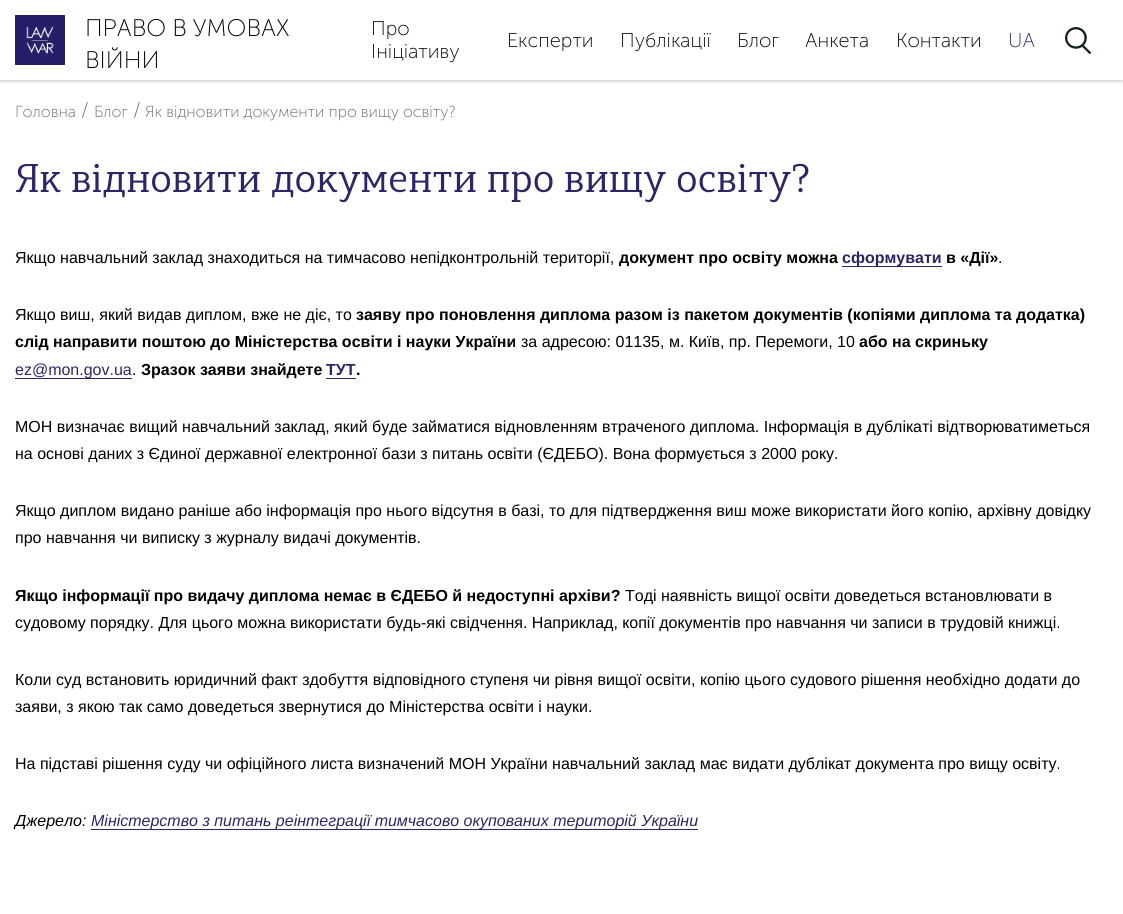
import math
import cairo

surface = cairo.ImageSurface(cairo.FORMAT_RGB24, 1123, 914)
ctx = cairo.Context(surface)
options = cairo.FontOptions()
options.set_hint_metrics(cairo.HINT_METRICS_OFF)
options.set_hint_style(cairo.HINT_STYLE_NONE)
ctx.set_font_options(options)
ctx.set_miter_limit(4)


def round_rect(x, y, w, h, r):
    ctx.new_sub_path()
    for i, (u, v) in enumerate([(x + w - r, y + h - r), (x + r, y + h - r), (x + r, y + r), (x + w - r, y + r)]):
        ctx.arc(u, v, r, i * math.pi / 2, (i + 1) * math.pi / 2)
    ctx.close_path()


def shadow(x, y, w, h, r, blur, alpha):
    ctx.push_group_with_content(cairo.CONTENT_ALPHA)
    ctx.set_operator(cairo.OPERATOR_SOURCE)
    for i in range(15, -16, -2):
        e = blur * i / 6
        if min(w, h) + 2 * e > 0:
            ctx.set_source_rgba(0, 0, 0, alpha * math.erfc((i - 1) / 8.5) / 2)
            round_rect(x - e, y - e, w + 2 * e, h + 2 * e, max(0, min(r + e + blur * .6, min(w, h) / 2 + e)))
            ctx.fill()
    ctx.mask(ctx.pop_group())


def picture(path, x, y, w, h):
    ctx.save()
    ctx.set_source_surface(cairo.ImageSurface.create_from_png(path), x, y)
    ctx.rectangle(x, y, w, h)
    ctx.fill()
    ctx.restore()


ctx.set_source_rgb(1, 1, 1)
ctx.paint()
ctx.save()
ctx.rectangle(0, 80, 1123, 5)
ctx.clip()
ctx.set_source_rgb(0.667, 0.667, 0.667)
shadow(0, 0, 1123, 80, 0, 2.5, 1)
ctx.restore()
picture("img1.png", 15, 15, 50, 50)
ctx.select_font_face("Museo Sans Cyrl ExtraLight")
ctx.set_font_size(24)
ctx.set_source_rgb(0, 0, 0)
ctx.move_to(85, 36)
ctx.show_text("ПРАВО В УМОВАХ")
ctx.move_to(85, 68)
ctx.show_text("ВІЙНИ")
ctx.set_font_size(20)
ctx.move_to(371, 35)
ctx.show_text("Про")
ctx.move_to(371, 58)
ctx.show_text("Ініціативу")
ctx.move_to(507, 47)
ctx.show_text("Експерти")
ctx.move_to(620, 47)
ctx.show_text("Публікації")
ctx.move_to(737, 47)
ctx.show_text("Блог")
ctx.move_to(805, 47)
ctx.show_text("Анкета")
ctx.move_to(896, 47)
ctx.show_text("Контакти")
ctx.set_source_rgb(0.169, 0.153, 0.4)
ctx.move_to(1008, 47)
ctx.show_text("UA")
picture("img2.png", 1065, 27, 26, 27)
ctx.set_font_size(16)
ctx.set_source_rgb(0.4, 0.4, 0.4)
ctx.move_to(15, 117)
ctx.show_text("Головна")
ctx.set_font_size(20)
ctx.move_to(81, 117)
ctx.show_text("/")
ctx.set_font_size(16)
ctx.move_to(94, 117)
ctx.show_text("Блог")
ctx.set_font_size(20)
ctx.move_to(133, 117)
ctx.show_text("/")
ctx.set_font_size(16)
ctx.move_to(145, 117)
ctx.show_text("Як відновити документи про вищу освіту?")
ctx.select_font_face("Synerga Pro")
ctx.set_font_size(40)
ctx.set_source_rgb(0.169, 0.153, 0.4)
ctx.move_to(15, 192)
ctx.show_text("Як відновити документи про вищу освіту?")
ctx.select_font_face("Liberation Sans")
ctx.set_font_size(16)
ctx.set_source_rgb(0, 0, 0)
ctx.move_to(15, 263)
ctx.show_text("Якщо навчальний заклад знаходиться на тимчасово непідконтрольній території,")
ctx.select_font_face("Liberation Sans", cairo.FONT_SLANT_NORMAL, cairo.FONT_WEIGHT_BOLD)
ctx.move_to(619, 263)
ctx.show_text("документ про освіту можна")
ctx.set_source_rgb(0.169, 0.153, 0.4)
ctx.rectangle(842, 266, 100, 1)
ctx.fill()
ctx.move_to(842, 263)
ctx.show_text("сформувати")
ctx.set_source_rgb(0, 0, 0)
ctx.move_to(946, 263)
ctx.show_text("в «Дії»")
ctx.select_font_face("Liberation Sans")
ctx.move_to(998, 263)
ctx.show_text(".")
ctx.move_to(15, 320)
ctx.show_text("Якщо виш, який видав диплом, вже не діє, то")
ctx.select_font_face("Liberation Sans", cairo.FONT_SLANT_NORMAL, cairo.FONT_WEIGHT_BOLD)
ctx.move_to(356, 320)
ctx.show_text("заяву про поновлення диплома разом із пакетом документів (копіями диплома та додатка)")
ctx.move_to(15, 347)
ctx.show_text("слід направити поштою до Міністерства освіти і науки України")
ctx.select_font_face("Liberation Sans")
ctx.move_to(521, 347)
ctx.show_text("за адресою: 01135, м. Київ, пр. Перемоги, 10")
ctx.select_font_face("Liberation Sans", cairo.FONT_SLANT_NORMAL, cairo.FONT_WEIGHT_BOLD)
ctx.move_to(859, 347)
ctx.show_text("або на скриньку")
ctx.set_source_rgb(0.169, 0.153, 0.4)
ctx.rectangle(15, 378, 117, 1)
ctx.fill()
ctx.select_font_face("Liberation Sans")
ctx.move_to(15, 375)
ctx.show_text("ez@mon.gov.ua")
ctx.set_source_rgb(0, 0, 0)
ctx.move_to(132, 375)
ctx.show_text(".")
ctx.select_font_face("Liberation Sans", cairo.FONT_SLANT_NORMAL, cairo.FONT_WEIGHT_BOLD)
ctx.move_to(141, 375)
ctx.show_text("Зразок заяви знайдете")
ctx.set_source_rgb(0.169, 0.153, 0.4)
ctx.move_to(326, 375)
ctx.show_text("ТУТ")
ctx.set_source_rgb(0, 0, 0)
ctx.move_to(356, 375)
ctx.show_text(".")
ctx.set_source_rgb(0.169, 0.153, 0.4)
ctx.rectangle(326, 378, 30, 1)
ctx.fill()
ctx.select_font_face("Liberation Sans")
ctx.set_source_rgb(0, 0, 0)
ctx.move_to(15, 432)
ctx.show_text("МОН визначає вищий навчальний заклад, який буде займатися відновленням втраченого диплома. Інформація в дублікаті відтворюватиметься")
ctx.move_to(15, 459)
ctx.show_text("на основі даних з Єдиної державної електронної бази з питань освіти (ЄДЕБО). Вона формується з 2000 року.")
ctx.move_to(15, 516)
ctx.show_text("Якщо диплом видано раніше або інформація про нього відсутня в базі, то для підтвердження виш може використати його копію, архівну довідку")
ctx.move_to(15, 543)
ctx.show_text("про навчання чи виписку з журналу видачі документів.")
ctx.select_font_face("Liberation Sans", cairo.FONT_SLANT_NORMAL, cairo.FONT_WEIGHT_BOLD)
ctx.move_to(15, 601)
ctx.show_text("Якщо інформації про видачу диплома немає в ЄДЕБО й недоступні архіви?")
ctx.select_font_face("Liberation Sans")
ctx.move_to(625, 601)
ctx.show_text("Тоді наявність вищої освіти доведеться встановлювати в")
ctx.move_to(15, 628)
ctx.show_text("судовому порядку. Для цього можна використати будь-які свідчення. Наприклад, копії документів про навчання чи записи в трудовій книжці.")
ctx.move_to(15, 685)
ctx.show_text("Коли суд встановить юридичний факт здобуття відповідного ступеня чи рівня вищої освіти, копію цього судового рішення необхідно додати до")
ctx.move_to(15, 712)
ctx.show_text("заяви, з якою так само доведеться звернутися до Міністерства освіти і науки.")
ctx.move_to(15, 769)
ctx.show_text("На підставі рішення суду чи офіційного листа визначений МОН України навчальний заклад має видати дублікат документа про вищу освіту.")
ctx.select_font_face("Liberation Sans", cairo.FONT_SLANT_ITALIC)
ctx.move_to(15, 826)
ctx.show_text("Джерело:")
ctx.set_source_rgb(0.169, 0.153, 0.4)
ctx.rectangle(91, 829, 607, 1)
ctx.fill()
ctx.move_to(91, 826)
ctx.show_text("Міністерство з питань реінтеграції тимчасово окупованих територій України")
surface.write_to_png("page.png")
